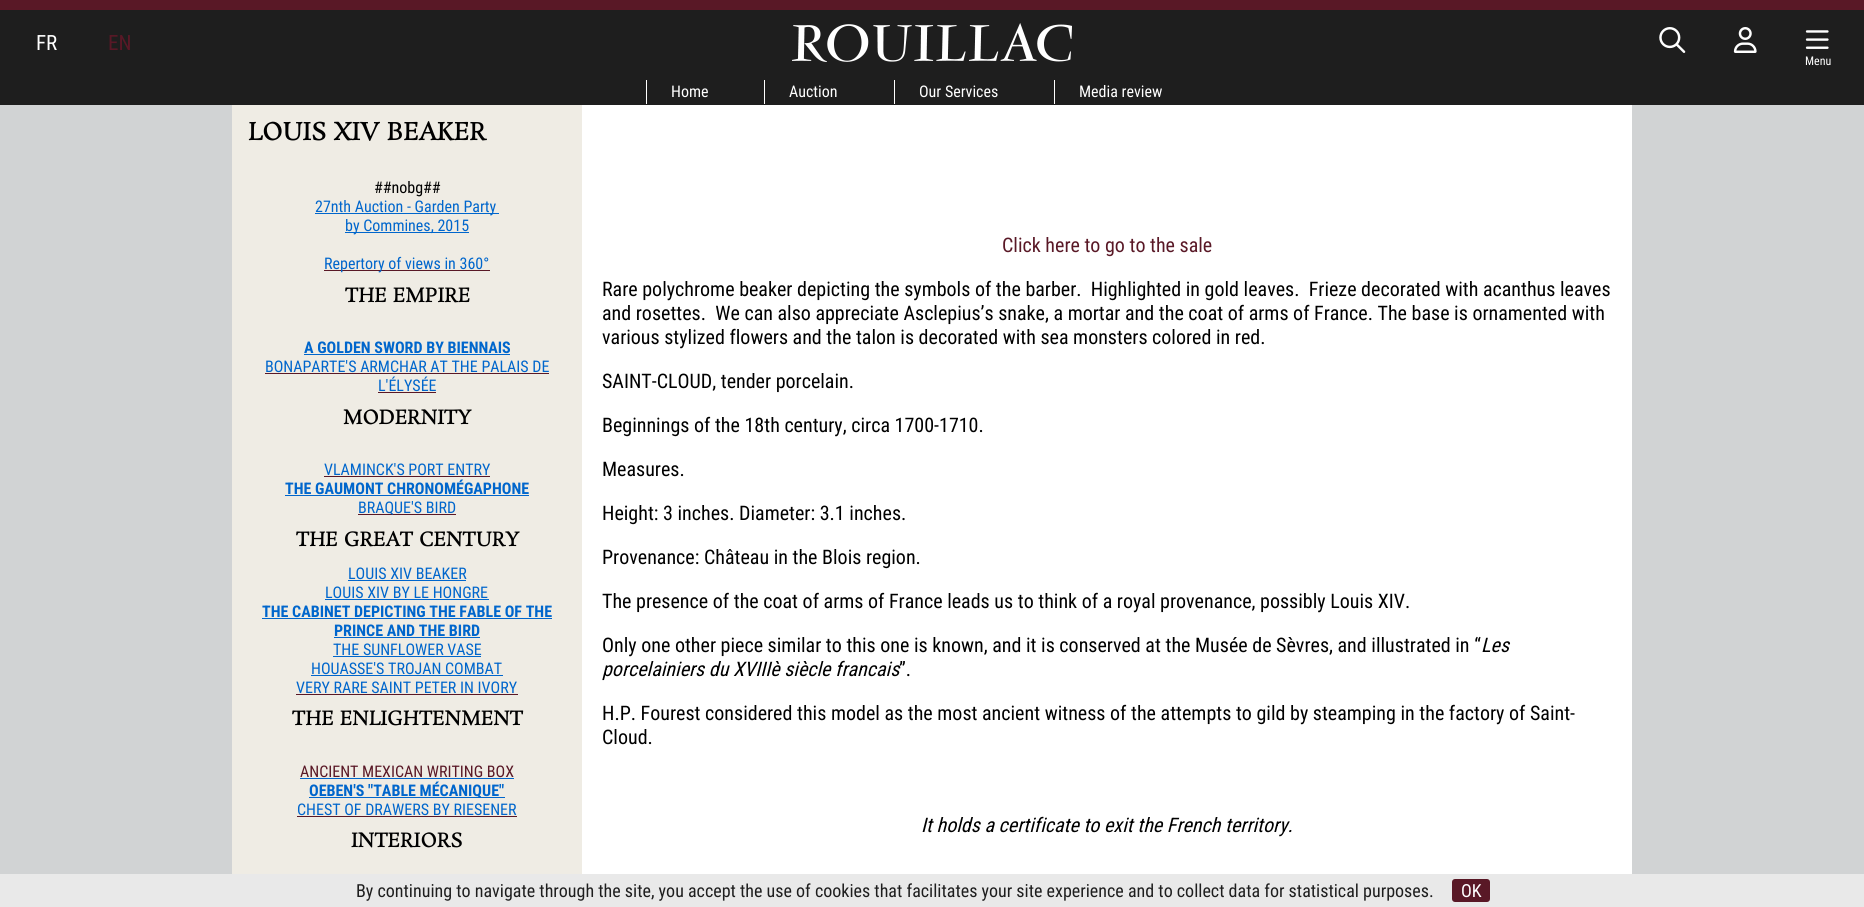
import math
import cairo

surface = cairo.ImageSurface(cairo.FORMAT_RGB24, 1864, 907)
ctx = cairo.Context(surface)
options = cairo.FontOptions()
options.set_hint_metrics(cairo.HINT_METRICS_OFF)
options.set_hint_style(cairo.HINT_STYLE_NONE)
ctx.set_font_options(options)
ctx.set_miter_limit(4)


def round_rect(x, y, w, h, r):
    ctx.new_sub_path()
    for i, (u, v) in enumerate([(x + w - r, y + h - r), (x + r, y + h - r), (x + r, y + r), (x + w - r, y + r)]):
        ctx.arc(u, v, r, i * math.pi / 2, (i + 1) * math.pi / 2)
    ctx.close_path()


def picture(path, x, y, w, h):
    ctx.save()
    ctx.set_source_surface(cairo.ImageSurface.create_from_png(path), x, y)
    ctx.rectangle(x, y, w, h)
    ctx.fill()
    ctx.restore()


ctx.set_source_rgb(0.82, 0.827, 0.831)
ctx.paint()
ctx.set_source_rgb(0.118, 0.118, 0.118)
ctx.rectangle(0, 10, 1864, 95)
ctx.fill()
ctx.set_source_rgb(0.349, 0.094, 0.149)
ctx.rectangle(0, 0, 1864, 10)
ctx.fill()
ctx.select_font_face("Roboto Condensed")
ctx.set_font_size(21)
ctx.set_source_rgb(1, 1, 1)
ctx.move_to(36, 50)
ctx.show_text("FR")
ctx.set_source_rgb(0.349, 0.094, 0.149)
ctx.move_to(108, 50)
ctx.show_text("EN")
picture("img1.png", 792, 23, 280, 39)
picture("img2.png", 1659, 27, 27, 26)
picture("img3.png", 1733, 27, 24, 26)
picture("img4.png", 1805, 30, 24, 19)
ctx.set_font_size(12)
ctx.set_source_rgb(1, 1, 1)
ctx.move_to(1805, 65)
ctx.show_text("Menu")
ctx.rectangle(646, 80, 1, 24)
ctx.fill()
ctx.set_font_size(16)
ctx.move_to(671, 97)
ctx.show_text("Home")
ctx.rectangle(764, 80, 1, 24)
ctx.fill()
ctx.move_to(789, 97)
ctx.show_text("Auction")
ctx.rectangle(894, 80, 1, 24)
ctx.fill()
ctx.move_to(919, 97)
ctx.show_text("Our Services")
ctx.rectangle(1054, 80, 1, 24)
ctx.fill()
ctx.move_to(1079, 97)
ctx.show_text("Media review")
ctx.set_source_rgb(0.937, 0.925, 0.894)
ctx.rectangle(232, 105, 350, 769)
ctx.fill()
ctx.select_font_face("Rosarivo", cairo.FONT_SLANT_NORMAL, cairo.FONT_WEIGHT_BOLD)
ctx.set_font_size(24)
ctx.set_source_rgb(0, 0, 0)
ctx.move_to(248, 140)
ctx.show_text("LOUIS XIV BEAKER")
ctx.select_font_face("Roboto Condensed")
ctx.set_font_size(16)
ctx.move_to(374, 193)
ctx.show_text("##nobg##")
ctx.set_source_rgb(0, 0.4, 0.8)
ctx.rectangle(315, 213, 184, 1)
ctx.fill()
ctx.move_to(315, 212)
ctx.show_text("27nth Auction - Garden Party")
ctx.rectangle(345, 232, 124, 1)
ctx.fill()
ctx.move_to(345, 231)
ctx.show_text("by Commines, 2015")
ctx.set_source_rgb(0.349, 0.094, 0.149)
ctx.rectangle(324, 270, 166, 1)
ctx.fill()
ctx.set_source_rgb(0, 0.4, 0.8)
ctx.move_to(324, 269)
ctx.show_text("Repertory of views in 360°")
ctx.select_font_face("Rosarivo", cairo.FONT_SLANT_NORMAL, cairo.FONT_WEIGHT_BOLD)
ctx.set_font_size(19.25)
ctx.set_source_rgb(0, 0, 0)
ctx.move_to(345, 302)
ctx.show_text("THE EMPIRE")
ctx.select_font_face("Roboto Condensed", cairo.FONT_SLANT_NORMAL, cairo.FONT_WEIGHT_BOLD)
ctx.set_font_size(16)
ctx.set_source_rgb(0, 0.4, 0.8)
ctx.move_to(304, 353)
ctx.show_text("A GOLDEN SWORD BY BIENNAIS")
ctx.rectangle(304, 354, 206, 1)
ctx.fill()
ctx.select_font_face("Roboto Condensed")
ctx.move_to(265, 372)
ctx.show_text("BONAPARTE'S ARMCHAR AT THE PALAIS DE")
ctx.set_source_rgb(0.349, 0.094, 0.149)
ctx.rectangle(265, 373, 284, 1)
ctx.fill()
ctx.set_source_rgb(0, 0.4, 0.8)
ctx.move_to(378, 391)
ctx.show_text("L'ÉLYSÉE")
ctx.set_source_rgb(0.349, 0.094, 0.149)
ctx.rectangle(378, 392, 58, 1)
ctx.fill()
ctx.select_font_face("Rosarivo", cairo.FONT_SLANT_NORMAL, cairo.FONT_WEIGHT_BOLD)
ctx.set_font_size(19.25)
ctx.set_source_rgb(0, 0, 0)
ctx.move_to(343, 424)
ctx.show_text("MODERNITY")
ctx.select_font_face("Roboto Condensed")
ctx.set_font_size(16)
ctx.set_source_rgb(0, 0.4, 0.8)
ctx.move_to(324, 475)
ctx.show_text("VLAMINCK'S PORT ENTRY")
ctx.set_source_rgb(0.349, 0.094, 0.149)
ctx.rectangle(324, 476, 166, 1)
ctx.fill()
ctx.select_font_face("Roboto Condensed", cairo.FONT_SLANT_NORMAL, cairo.FONT_WEIGHT_BOLD)
ctx.set_source_rgb(0, 0.4, 0.8)
ctx.move_to(285, 494)
ctx.show_text("THE GAUMONT CHRONOMÉGAPHONE")
ctx.rectangle(285, 495, 244, 1)
ctx.fill()
ctx.set_source_rgb(0.349, 0.094, 0.149)
ctx.rectangle(358, 514, 98, 1)
ctx.fill()
ctx.select_font_face("Roboto Condensed")
ctx.set_source_rgb(0, 0.4, 0.8)
ctx.move_to(358, 513)
ctx.show_text("BRAQUE'S BIRD")
ctx.select_font_face("Rosarivo", cairo.FONT_SLANT_NORMAL, cairo.FONT_WEIGHT_BOLD)
ctx.set_font_size(19.25)
ctx.set_source_rgb(0, 0, 0)
ctx.move_to(296, 546)
ctx.show_text("THE GREAT CENTURY")
ctx.select_font_face("Roboto Condensed")
ctx.set_font_size(16)
ctx.set_source_rgb(0, 0.4, 0.8)
ctx.move_to(348, 579)
ctx.show_text("LOUIS XIV BEAKER")
ctx.rectangle(348, 580, 118, 1)
ctx.fill()
ctx.move_to(325, 598)
ctx.show_text("LOUIS XIV BY LE HONGRE")
ctx.rectangle(325, 599, 164, 1)
ctx.fill()
ctx.select_font_face("Roboto Condensed", cairo.FONT_SLANT_NORMAL, cairo.FONT_WEIGHT_BOLD)
ctx.move_to(262, 617)
ctx.show_text("THE CABINET DEPICTING THE FABLE OF THE")
ctx.rectangle(262, 618, 290, 1)
ctx.fill()
ctx.move_to(334, 636)
ctx.show_text("PRINCE AND THE BIRD")
ctx.rectangle(334, 637, 146, 1)
ctx.fill()
ctx.select_font_face("Roboto Condensed")
ctx.move_to(333, 655)
ctx.show_text("THE SUNFLOWER VASE")
ctx.rectangle(333, 656, 148, 1)
ctx.fill()
ctx.move_to(311, 674)
ctx.show_text("HOUASSE'S TROJAN COMBAT")
ctx.rectangle(311, 675, 192, 1)
ctx.fill()
ctx.move_to(296, 693)
ctx.show_text("VERY RARE SAINT PETER IN IVORY")
ctx.set_source_rgb(0.349, 0.094, 0.149)
ctx.rectangle(296, 694, 222, 1)
ctx.fill()
ctx.select_font_face("Rosarivo", cairo.FONT_SLANT_NORMAL, cairo.FONT_WEIGHT_BOLD)
ctx.set_font_size(19.25)
ctx.set_source_rgb(0, 0, 0)
ctx.move_to(292, 725)
ctx.show_text("THE ENLIGHTENMENT")
ctx.select_font_face("Roboto Condensed")
ctx.set_font_size(16)
ctx.set_source_rgb(0.349, 0.094, 0.149)
ctx.move_to(300, 777)
ctx.show_text("ANCIENT MEXICAN WRITING BOX")
ctx.set_source_rgb(0, 0.4, 0.8)
ctx.rectangle(300, 778, 214, 1)
ctx.fill()
ctx.rectangle(309, 797, 196, 1)
ctx.fill()
ctx.select_font_face("Roboto Condensed", cairo.FONT_SLANT_NORMAL, cairo.FONT_WEIGHT_BOLD)
ctx.move_to(309, 796)
ctx.show_text("OEBEN'S \"TABLE MÉCANIQUE\"")
ctx.select_font_face("Roboto Condensed")
ctx.move_to(297, 815)
ctx.show_text("CHEST OF DRAWERS BY RIESENER")
ctx.set_source_rgb(0.349, 0.094, 0.149)
ctx.rectangle(297, 816, 220, 1)
ctx.fill()
ctx.select_font_face("Rosarivo", cairo.FONT_SLANT_NORMAL, cairo.FONT_WEIGHT_BOLD)
ctx.set_font_size(19.25)
ctx.set_source_rgb(0, 0, 0)
ctx.move_to(351, 847)
ctx.show_text("INTERIORS")
ctx.set_source_rgb(1, 1, 1)
ctx.rectangle(582, 105, 1050, 769)
ctx.fill()
ctx.select_font_face("Roboto Condensed")
ctx.set_font_size(20)
ctx.set_source_rgb(0.349, 0.094, 0.149)
ctx.move_to(1002, 252)
ctx.show_text("Click here to go to the sale")
ctx.set_source_rgb(0, 0, 0)
ctx.move_to(602, 296)
ctx.show_text("Rare polychrome beaker depicting the symbols of the barber.  Highlighted in gold leaves.  Frieze decorated with acanthus leaves")
ctx.move_to(602, 320)
ctx.show_text("and rosettes.  We can also appreciate Asclepius’s snake, a mortar and the coat of arms of France. The base is ornamented with")
ctx.move_to(602, 344)
ctx.show_text("various stylized flowers and the talon is decorated with sea monsters colored in red.")
ctx.move_to(602, 388)
ctx.show_text("SAINT-CLOUD, tender porcelain.")
ctx.move_to(602, 432)
ctx.show_text("Beginnings of the 18th century, circa 1700-1710.")
ctx.move_to(602, 476)
ctx.show_text("Measures.")
ctx.move_to(602, 520)
ctx.show_text("Height: 3 inches. Diameter: 3.1 inches.")
ctx.move_to(602, 564)
ctx.show_text("Provenance: Château in the Blois region.")
ctx.move_to(602, 608)
ctx.show_text("The presence of the coat of arms of France leads us to think of a royal provenance, possibly Louis XIV.")
ctx.move_to(602, 652)
ctx.show_text("Only one other piece similar to this one is known, and it is conserved at the Musée de Sèvres, and illustrated in “")
ctx.select_font_face("Roboto Condensed", cairo.FONT_SLANT_ITALIC)
ctx.move_to(1481, 652)
ctx.show_text("Les")
ctx.move_to(602, 676)
ctx.show_text("porcelainiers du XVIIIè siècle francais")
ctx.select_font_face("Roboto Condensed")
ctx.move_to(899, 676)
ctx.show_text("”.")
ctx.move_to(602, 720)
ctx.show_text("H.P. Fourest considered this model as the most ancient witness of the attempts to gild by steamping in the factory of Saint-")
ctx.move_to(602, 744)
ctx.show_text("Cloud.")
ctx.select_font_face("Roboto Condensed", cairo.FONT_SLANT_ITALIC)
ctx.move_to(921, 832)
ctx.show_text("It holds a certificate to exit the French territory.")
ctx.set_source_rgb(0.914, 0.914, 0.914)
ctx.rectangle(0, 874, 1864, 33)
ctx.fill()
ctx.select_font_face("Roboto Condensed")
ctx.set_font_size(18)
ctx.set_source_rgb(0.118, 0.118, 0.118)
ctx.move_to(356, 897)
ctx.show_text("By continuing to navigate through the site, you accept the use of cookies that facilitates your site experience and to collect data for statistical purposes.")
ctx.set_source_rgb(0.349, 0.094, 0.149)
round_rect(1452, 879, 38, 23, 3)
ctx.fill()
ctx.set_source_rgb(1, 1, 1)
ctx.move_to(1461, 897)
ctx.show_text("OK")
surface.write_to_png("page.png")
